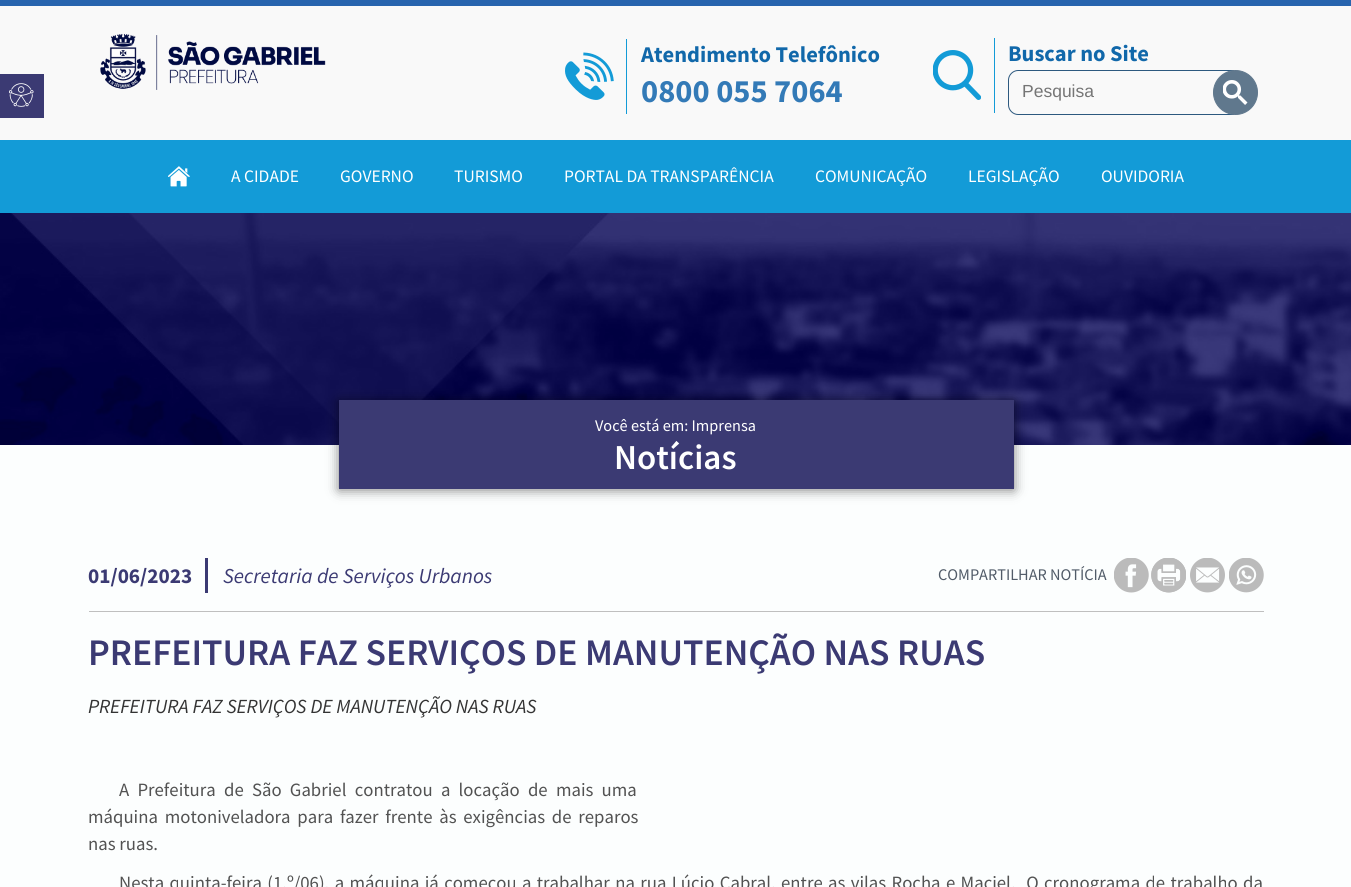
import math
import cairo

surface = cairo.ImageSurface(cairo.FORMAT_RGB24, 1351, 887)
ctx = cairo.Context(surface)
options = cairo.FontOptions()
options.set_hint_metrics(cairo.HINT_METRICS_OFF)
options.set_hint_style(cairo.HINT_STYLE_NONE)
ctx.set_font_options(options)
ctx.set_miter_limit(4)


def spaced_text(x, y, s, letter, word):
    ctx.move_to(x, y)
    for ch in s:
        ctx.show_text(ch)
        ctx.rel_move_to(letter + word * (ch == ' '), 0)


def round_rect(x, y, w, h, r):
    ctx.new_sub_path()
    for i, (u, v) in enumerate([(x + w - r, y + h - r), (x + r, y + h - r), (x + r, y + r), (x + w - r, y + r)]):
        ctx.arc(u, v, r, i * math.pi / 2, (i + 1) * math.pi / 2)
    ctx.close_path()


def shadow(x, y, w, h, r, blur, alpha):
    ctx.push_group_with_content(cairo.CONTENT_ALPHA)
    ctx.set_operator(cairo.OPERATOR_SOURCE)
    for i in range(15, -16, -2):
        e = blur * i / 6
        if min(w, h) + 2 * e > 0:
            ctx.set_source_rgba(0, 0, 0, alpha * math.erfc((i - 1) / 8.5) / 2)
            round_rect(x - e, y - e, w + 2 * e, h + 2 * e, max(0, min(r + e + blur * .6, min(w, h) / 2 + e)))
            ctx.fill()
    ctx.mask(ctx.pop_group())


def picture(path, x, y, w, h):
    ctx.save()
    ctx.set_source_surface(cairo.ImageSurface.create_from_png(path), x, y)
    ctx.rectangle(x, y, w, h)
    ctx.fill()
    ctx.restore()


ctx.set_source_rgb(0.988, 0.996, 0.996)
ctx.paint()
ctx.set_source_rgb(0.976, 0.976, 0.976)
ctx.rectangle(0, 6, 1351, 134)
ctx.fill()
ctx.set_source_rgb(0.231, 0.227, 0.451)
ctx.rectangle(0, 74, 44, 44)
ctx.fill()
picture("img1.png", 9, 83, 25, 24)
ctx.set_source_rgb(0.153, 0.392, 0.682)
ctx.rectangle(0, 0, 1351, 6)
ctx.fill()
picture("img2.png", 100, 33, 226, 57)
ctx.set_source_rgb(0.075, 0.608, 0.843)
ctx.rectangle(626, 39, 1, 75)
ctx.fill()
picture("img3.png", 565, 52, 49, 48)
ctx.select_font_face("Source Sans Pro", cairo.FONT_SLANT_NORMAL, cairo.FONT_WEIGHT_BOLD)
ctx.set_font_size(22.5)
ctx.set_source_rgb(0.067, 0.408, 0.667)
ctx.move_to(641, 62)
ctx.show_text("Atendimento Telefônico")
ctx.set_font_size(32.5)
ctx.set_source_rgb(0.2, 0.478, 0.718)
ctx.move_to(641, 102)
ctx.show_text("0800 055 7064")
ctx.set_source_rgb(0.075, 0.608, 0.843)
ctx.rectangle(994, 38, 1, 75)
ctx.fill()
picture("img4.png", 933, 50, 48, 50)
ctx.set_font_size(22.5)
ctx.set_source_rgb(0.067, 0.408, 0.667)
ctx.move_to(1008, 61)
ctx.show_text("Buscar no Site")
ctx.new_path()
ctx.move_to(1018, 70.5)
ctx.line_to(1233.5, 70.5)
ctx.line_to(1233.5, 114.5)
ctx.line_to(1018, 114.5)
ctx.curve_to(1013, 114.5, 1008.5, 110, 1008.5, 105)
ctx.line_to(1008.5, 80)
ctx.curve_to(1008.5, 75, 1013, 70.5, 1018, 70.5)
ctx.close_path()
ctx.set_source_rgb(0.176, 0.349, 0.498)
ctx.set_line_width(1)
ctx.stroke()
ctx.select_font_face("Liberation Sans")
ctx.set_font_size(17.5)
ctx.set_source_rgb(0.459, 0.459, 0.459)
ctx.move_to(1022, 97)
ctx.show_text("Pesquisa")
ctx.set_source_rgb(0.376, 0.471, 0.553)
ctx.new_path()
ctx.arc(1235.5, 92.5, 22, 0, 2 * math.pi)
ctx.fill_preserve()
ctx.stroke()
picture("img5.png", 1223, 80, 25, 25)
ctx.set_source_rgb(0.075, 0.608, 0.843)
ctx.rectangle(0, 140, 1351, 73)
ctx.fill()
picture("img6.png", 168, 166, 22, 21)
ctx.select_font_face("Source Sans Pro")
ctx.set_source_rgb(1, 1, 1)
ctx.move_to(231, 182)
ctx.show_text("A CIDADE")
ctx.move_to(340, 182)
ctx.show_text("GOVERNO")
ctx.move_to(454, 182)
ctx.show_text("TURISMO")
ctx.move_to(564, 182)
ctx.show_text("PORTAL DA TRANSPARÊNCIA")
ctx.move_to(815, 182)
ctx.show_text("COMUNICAÇÃO")
ctx.move_to(968, 182)
ctx.show_text("LEGISLAÇÃO")
ctx.move_to(1101, 182)
ctx.show_text("OUVIDORIA")
picture("img7.png", 0, 213, 1351, 232)
ctx.set_source_rgb(0, 0, 0)
shadow(339, 401, 675, 89, 0, 6, 0.5)
ctx.set_source_rgb(0.231, 0.227, 0.451)
ctx.rectangle(339, 400, 675, 89)
ctx.fill()
ctx.set_font_size(16.25)
ctx.set_source_rgb(1, 1, 1)
ctx.move_to(595, 431)
ctx.show_text("Você está em: Imprensa")
ctx.select_font_face("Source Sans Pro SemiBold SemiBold")
ctx.set_font_size(35)
ctx.move_to(614, 469)
ctx.show_text("Notícias")
ctx.set_source_rgb(0.749, 0.749, 0.749)
ctx.rectangle(89, 611, 1175, 1)
ctx.fill()
ctx.set_source_rgb(0.231, 0.227, 0.451)
ctx.rectangle(205, 558, 3, 35)
ctx.fill()
ctx.select_font_face("Source Sans Pro", cairo.FONT_SLANT_NORMAL, cairo.FONT_WEIGHT_BOLD)
ctx.set_font_size(21.25)
ctx.move_to(88, 583)
ctx.show_text("01/06/2023")
ctx.select_font_face("Source Sans Pro", cairo.FONT_SLANT_ITALIC)
ctx.move_to(223, 583)
ctx.show_text("Secretaria de Serviços Urbanos")
ctx.select_font_face("Source Sans Pro")
ctx.set_font_size(16.25)
ctx.set_source_rgb(0.318, 0.357, 0.408)
ctx.move_to(938, 580)
ctx.show_text("COMPARTILHAR NOTÍCIA")
picture("img8.png", 1114, 558, 35, 35)
picture("img9.png", 1151, 558, 35, 35)
picture("img10.png", 1190, 558, 35, 35)
picture("img11.png", 1229, 558, 35, 35)
ctx.select_font_face("Source Sans Pro SemiBold SemiBold")
ctx.set_font_size(37.5)
ctx.set_source_rgb(0.231, 0.227, 0.451)
ctx.move_to(88, 665)
ctx.show_text("PREFEITURA FAZ SERVIÇOS DE MANUTENÇÃO NAS RUAS")
ctx.select_font_face("Source Sans Pro", cairo.FONT_SLANT_ITALIC)
ctx.set_font_size(20)
ctx.set_source_rgb(0.2, 0.2, 0.2)
ctx.move_to(88, 713)
ctx.show_text("PREFEITURA FAZ SERVIÇOS DE MANUTENÇÃO NAS RUAS")
ctx.select_font_face("Source Sans Pro")
ctx.set_font_size(18.75)
ctx.set_source_rgb(0.322, 0.322, 0.322)
spaced_text(119, 796, "A Prefeitura de São Gabriel contratou a locação de mais uma", 0, 4.5)
spaced_text(88, 823, "máquina motoniveladora para fazer frente às exigências de reparos", 0, 3)
ctx.move_to(88, 850)
ctx.show_text("nas ruas.")
spaced_text(119, 889, "Nesta quinta-feira (1.º/06), a máquina já começou a trabalhar na rua Lúcio Cabral, entre as vilas Rocha e Maciel.  O cronograma de trabalho da", 0, 1.6)
surface.write_to_png("page.png")
